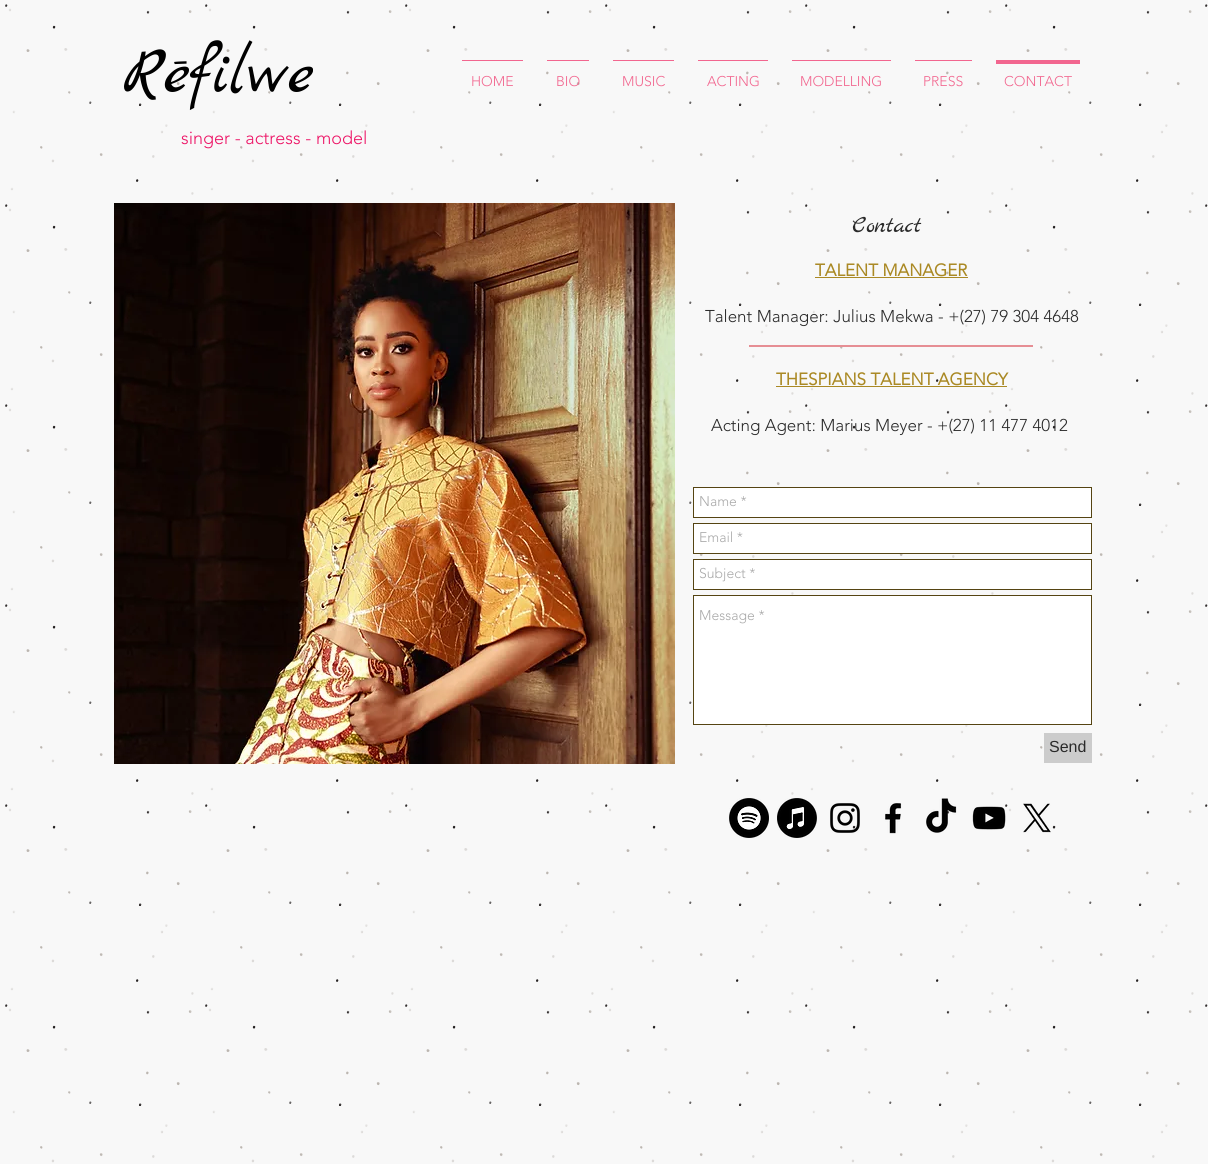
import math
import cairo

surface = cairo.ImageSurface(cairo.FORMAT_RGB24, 1208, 1164)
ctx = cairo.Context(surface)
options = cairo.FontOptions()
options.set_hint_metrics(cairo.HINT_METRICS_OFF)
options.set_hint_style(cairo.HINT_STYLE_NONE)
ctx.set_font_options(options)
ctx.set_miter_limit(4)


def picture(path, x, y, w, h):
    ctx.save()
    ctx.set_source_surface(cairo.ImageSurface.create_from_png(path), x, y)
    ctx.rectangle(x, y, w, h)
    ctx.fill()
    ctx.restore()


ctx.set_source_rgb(0.969, 0.969, 0.969)
ctx.paint()
picture("img1.png", 5, 4, 1203, 1159)
ctx.select_font_face("Marck Script")
ctx.set_font_size(67)
ctx.set_source_rgb(0, 0, 0)
ctx.move_to(122, 92)
ctx.show_text("Rēfilwe")
ctx.set_source_rgb(0.949, 0.4, 0.561)
ctx.rectangle(462, 60, 61, 1)
ctx.fill()
ctx.select_font_face("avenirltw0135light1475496 Light")
ctx.set_font_size(14)
ctx.move_to(471, 86)
ctx.show_text("HOME")
ctx.rectangle(547, 60, 42, 1)
ctx.fill()
ctx.move_to(556, 86)
ctx.show_text("BIO")
ctx.rectangle(613, 60, 61, 1)
ctx.fill()
ctx.move_to(622, 86)
ctx.show_text("MUSIC")
ctx.rectangle(698, 60, 70, 1)
ctx.fill()
ctx.move_to(707, 86)
ctx.show_text("ACTING")
ctx.rectangle(792, 60, 99, 1)
ctx.fill()
ctx.move_to(800, 86)
ctx.show_text("MODELLING")
ctx.rectangle(915, 60, 57, 1)
ctx.fill()
ctx.move_to(923, 86)
ctx.show_text("PRESS")
ctx.rectangle(996, 60, 84, 4)
ctx.fill()
ctx.move_to(1004, 86)
ctx.show_text("CONTACT")
ctx.set_font_size(18)
ctx.set_source_rgb(0.929, 0.082, 0.4)
ctx.move_to(181, 144)
ctx.show_text("singer - actress - model")
picture("img2.png", 114, 203, 561, 561)
ctx.select_font_face("Marck Script")
ctx.set_font_size(24)
ctx.set_source_rgb(0.165, 0.165, 0.165)
ctx.move_to(852, 232)
ctx.show_text("Contact")
ctx.select_font_face("avenirltw0135light1475496", cairo.FONT_SLANT_NORMAL, cairo.FONT_WEIGHT_BOLD)
ctx.set_font_size(17)
ctx.set_source_rgb(0.667, 0.537, 0.141)
ctx.move_to(815, 276)
ctx.show_text("TALENT MANAGER")
ctx.rectangle(815, 277, 153, 1)
ctx.fill()
ctx.select_font_face("avenirltw0135light1475496 Light")
ctx.set_source_rgb(0.165, 0.165, 0.165)
ctx.move_to(705, 322)
ctx.show_text("Talent Manager: Julius Mekwa - +(27) 79 304 4648")
ctx.set_source_rgb(0.902, 0.557, 0.58)
ctx.rectangle(749, 345, 284, 2)
ctx.fill()
ctx.select_font_face("avenirltw0135light1475496", cairo.FONT_SLANT_NORMAL, cairo.FONT_WEIGHT_BOLD)
ctx.set_source_rgb(0.667, 0.537, 0.141)
ctx.move_to(776, 385)
ctx.show_text("THESPIANS TALENT AGENCY")
ctx.rectangle(776, 386, 231, 1)
ctx.fill()
ctx.select_font_face("avenirltw0135light1475496 Light")
ctx.set_source_rgb(0.165, 0.165, 0.165)
ctx.move_to(711, 431)
ctx.show_text("Acting Agent: Marius Meyer - +(27) 11 477 4012")
ctx.set_source_rgb(1, 1, 1)
ctx.rectangle(693.5, 487.5, 398, 30)
ctx.fill_preserve()
ctx.set_source_rgb(0.333, 0.267, 0.071)
ctx.set_line_width(1)
ctx.stroke()
ctx.set_font_size(14)
ctx.set_source_rgb(0.663, 0.663, 0.663)
ctx.move_to(699, 506)
ctx.show_text("Name *")
ctx.set_source_rgb(1, 1, 1)
ctx.rectangle(693.5, 523.5, 398, 30)
ctx.fill_preserve()
ctx.set_source_rgb(0.333, 0.267, 0.071)
ctx.stroke()
ctx.set_source_rgb(0.663, 0.663, 0.663)
ctx.move_to(699, 542)
ctx.show_text("Email *")
ctx.set_source_rgb(1, 1, 1)
ctx.rectangle(693.5, 559.5, 398, 30)
ctx.fill_preserve()
ctx.set_source_rgb(0.333, 0.267, 0.071)
ctx.stroke()
ctx.set_source_rgb(0.663, 0.663, 0.663)
ctx.move_to(699, 578)
ctx.show_text("Subject *")
ctx.set_source_rgb(1, 1, 1)
ctx.rectangle(693.5, 595.5, 398, 129)
ctx.fill_preserve()
ctx.set_source_rgb(0.333, 0.267, 0.071)
ctx.stroke()
ctx.set_source_rgb(0.663, 0.663, 0.663)
ctx.move_to(699, 620)
ctx.show_text("Message *")
ctx.set_source_rgb(0.8, 0.8, 0.8)
ctx.rectangle(1044, 733, 48, 30)
ctx.fill()
ctx.select_font_face("Liberation Sans")
ctx.set_font_size(16)
ctx.set_source_rgb(0.165, 0.165, 0.165)
ctx.move_to(1049, 752)
ctx.show_text("Send")
picture("img3.png", 729, 798, 40, 40)
picture("img4.png", 777, 798, 40, 40)
picture("img5.png", 830, 803, 30, 30)
picture("img6.png", 885, 803, 17, 31)
picture("img7.png", 926, 798, 31, 35)
picture("img8.png", 972, 806, 34, 24)
picture("img9.png", 1023, 803, 28, 30)
surface.write_to_png("page.png")
